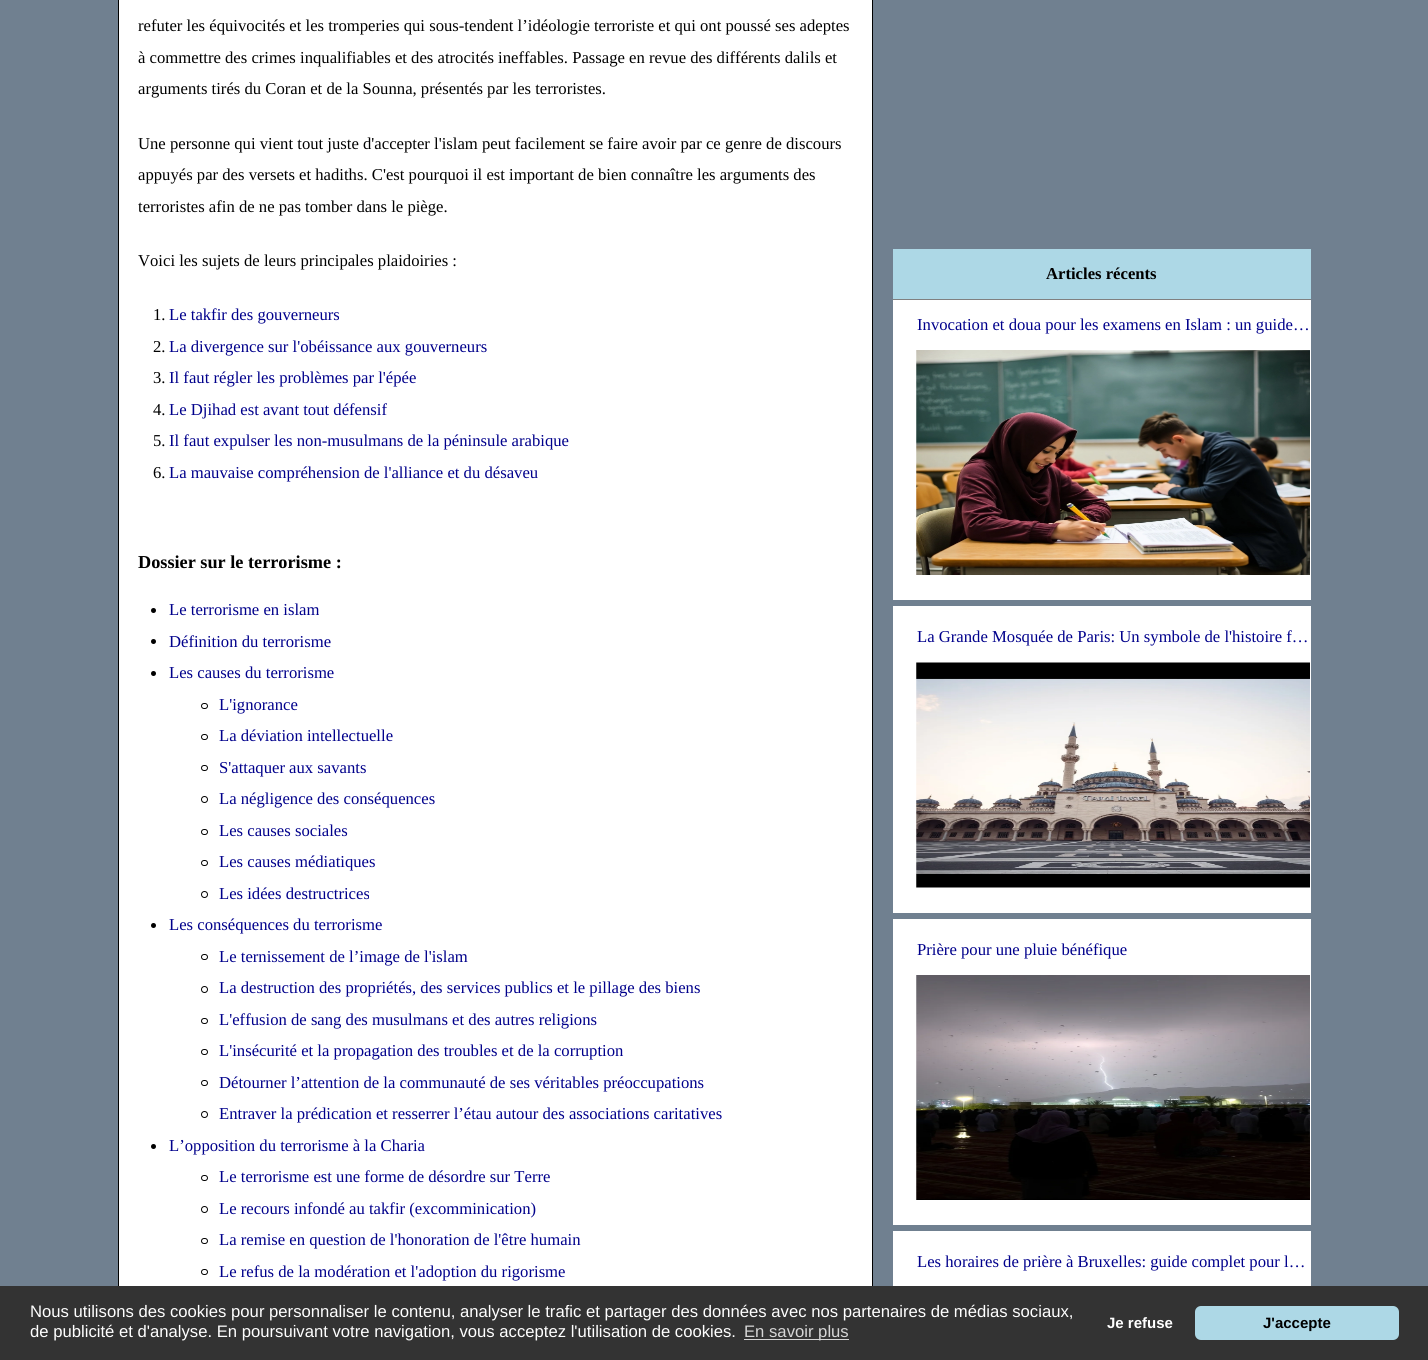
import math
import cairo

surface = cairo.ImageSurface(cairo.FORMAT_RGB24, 1428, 1360)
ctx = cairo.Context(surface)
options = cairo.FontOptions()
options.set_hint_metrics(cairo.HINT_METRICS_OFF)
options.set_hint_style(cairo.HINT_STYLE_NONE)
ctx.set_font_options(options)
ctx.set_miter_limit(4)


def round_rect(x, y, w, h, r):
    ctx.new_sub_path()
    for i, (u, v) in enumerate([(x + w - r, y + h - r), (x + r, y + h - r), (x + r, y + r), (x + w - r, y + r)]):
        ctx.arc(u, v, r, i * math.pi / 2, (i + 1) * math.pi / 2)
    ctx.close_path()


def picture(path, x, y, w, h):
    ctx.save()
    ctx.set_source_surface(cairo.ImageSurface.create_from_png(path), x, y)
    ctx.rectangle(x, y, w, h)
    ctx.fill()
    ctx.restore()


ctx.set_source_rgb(0.439, 0.502, 0.565)
ctx.paint()
ctx.set_source_rgb(1, 1, 1)
ctx.rectangle(119, 0, 753, 1286)
ctx.fill()
ctx.rectangle(118.5, -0.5, 754, 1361)
ctx.set_source_rgb(0, 0, 0)
ctx.set_line_width(1)
ctx.stroke()
ctx.select_font_face("Liberation Serif")
ctx.set_font_size(16.67)
ctx.move_to(138, 31)
ctx.show_text("refuter les équivocités et les tromperies qui sous-tendent l’idéologie terroriste et qui ont poussé ses adeptes")
ctx.move_to(138, 63)
ctx.show_text("à commettre des crimes inqualifiables et des atrocités ineffables. Passage en revue des différents dalils et")
ctx.move_to(138, 94)
ctx.show_text("arguments tirés du Coran et de la Sounna, présentés par les terroristes.")
ctx.move_to(138, 149)
ctx.show_text("Une personne qui vient tout juste d'accepter l'islam peut facilement se faire avoir par ce genre de discours")
ctx.move_to(138, 180)
ctx.show_text("appuyés par des versets et hadiths. C'est pourquoi il est important de bien connaître les arguments des")
ctx.move_to(138, 212)
ctx.show_text("terroristes afin de ne pas tomber dans le piège.")
ctx.move_to(138, 266)
ctx.show_text("Voici les sujets de leurs principales plaidoiries :")
ctx.move_to(153, 320)
ctx.show_text("1.")
ctx.set_source_rgb(0, 0, 0.545)
ctx.move_to(169, 320)
ctx.show_text("Le takfir des gouverneurs")
ctx.set_source_rgb(0, 0, 0)
ctx.move_to(153, 352)
ctx.show_text("2.")
ctx.set_source_rgb(0, 0, 0.545)
ctx.move_to(169, 352)
ctx.show_text("La divergence sur l'obéissance aux gouverneurs")
ctx.set_source_rgb(0, 0, 0)
ctx.move_to(153, 383)
ctx.show_text("3.")
ctx.set_source_rgb(0, 0, 0.545)
ctx.move_to(169, 383)
ctx.show_text("Il faut régler les problèmes par l'épée")
ctx.set_source_rgb(0, 0, 0)
ctx.move_to(153, 415)
ctx.show_text("4.")
ctx.set_source_rgb(0, 0, 0.545)
ctx.move_to(169, 415)
ctx.show_text("Le Djihad est avant tout défensif")
ctx.set_source_rgb(0, 0, 0)
ctx.move_to(153, 446)
ctx.show_text("5.")
ctx.set_source_rgb(0, 0, 0.545)
ctx.move_to(169, 446)
ctx.show_text("Il faut expulser les non-musulmans de la péninsule arabique")
ctx.set_source_rgb(0, 0, 0)
ctx.move_to(153, 478)
ctx.show_text("6.")
ctx.set_source_rgb(0, 0, 0.545)
ctx.move_to(169, 478)
ctx.show_text("La mauvaise compréhension de l'alliance et du désaveu")
ctx.select_font_face("Liberation Serif", cairo.FONT_SLANT_NORMAL, cairo.FONT_WEIGHT_BOLD)
ctx.set_font_size(18.25)
ctx.set_source_rgb(0, 0, 0)
ctx.move_to(138, 568)
ctx.show_text("Dossier sur le terrorisme :")
ctx.new_path()
ctx.arc(153.5, 610.5, 2.5, 0, 2 * math.pi)
ctx.fill()
ctx.select_font_face("Liberation Serif")
ctx.set_font_size(16.67)
ctx.set_source_rgb(0, 0, 0.545)
ctx.move_to(169, 615)
ctx.show_text("Le terrorisme en islam")
ctx.set_source_rgb(0, 0, 0)
ctx.new_path()
ctx.arc(153.5, 641.5, 2.5, 0, 2 * math.pi)
ctx.fill()
ctx.set_source_rgb(0, 0, 0.545)
ctx.move_to(169, 647)
ctx.show_text("Définition du terrorisme")
ctx.set_source_rgb(0, 0, 0)
ctx.new_path()
ctx.arc(153.5, 673.5, 2.5, 0, 2 * math.pi)
ctx.fill()
ctx.set_source_rgb(0, 0, 0.545)
ctx.move_to(169, 678)
ctx.show_text("Les causes du terrorisme")
round_rect(201.5, 703.5, 6, 5, 2.5)
ctx.set_source_rgb(0, 0, 0)
ctx.stroke()
ctx.set_source_rgb(0, 0, 0.545)
ctx.move_to(219, 710)
ctx.show_text("L'ignorance")
round_rect(201.5, 734.5, 6, 5, 2.5)
ctx.set_source_rgb(0, 0, 0)
ctx.stroke()
ctx.set_source_rgb(0, 0, 0.545)
ctx.move_to(219, 741)
ctx.show_text("La déviation intellectuelle")
round_rect(201.5, 765.5, 6, 5, 2.5)
ctx.set_source_rgb(0, 0, 0)
ctx.stroke()
ctx.set_source_rgb(0, 0, 0.545)
ctx.move_to(219, 773)
ctx.show_text("S'attaquer aux savants")
ctx.new_path()
ctx.arc(204.5, 799.5, 3, 0, 2 * math.pi)
ctx.set_source_rgb(0, 0, 0)
ctx.stroke()
ctx.set_source_rgb(0, 0, 0.545)
ctx.move_to(219, 804)
ctx.show_text("La négligence des conséquences")
round_rect(201.5, 829.5, 6, 5, 2.5)
ctx.set_source_rgb(0, 0, 0)
ctx.stroke()
ctx.set_source_rgb(0, 0, 0.545)
ctx.move_to(219, 836)
ctx.show_text("Les causes sociales")
round_rect(201.5, 860.5, 6, 5, 2.5)
ctx.set_source_rgb(0, 0, 0)
ctx.stroke()
ctx.set_source_rgb(0, 0, 0.545)
ctx.move_to(219, 867)
ctx.show_text("Les causes médiatiques")
ctx.new_path()
ctx.arc(204.5, 894.5, 3, 0, 2 * math.pi)
ctx.set_source_rgb(0, 0, 0)
ctx.stroke()
ctx.set_source_rgb(0, 0, 0.545)
ctx.move_to(219, 899)
ctx.show_text("Les idées destructrices")
ctx.set_source_rgb(0, 0, 0)
ctx.new_path()
ctx.arc(153.5, 925.5, 2.5, 0, 2 * math.pi)
ctx.fill()
ctx.set_source_rgb(0, 0, 0.545)
ctx.move_to(169, 930)
ctx.show_text("Les conséquences du terrorisme")
round_rect(201.5, 954.5, 6, 5, 2.5)
ctx.set_source_rgb(0, 0, 0)
ctx.stroke()
ctx.set_source_rgb(0, 0, 0.545)
ctx.move_to(219, 962)
ctx.show_text("Le ternissement de l’image de l'islam")
ctx.new_path()
ctx.arc(204.5, 989.5, 3, 0, 2 * math.pi)
ctx.set_source_rgb(0, 0, 0)
ctx.stroke()
ctx.set_source_rgb(0, 0, 0.545)
ctx.move_to(219, 993)
ctx.show_text("La destruction des propriétés, des services publics et le pillage des biens")
round_rect(201.5, 1018.5, 6, 5, 2.5)
ctx.set_source_rgb(0, 0, 0)
ctx.stroke()
ctx.set_source_rgb(0, 0, 0.545)
ctx.move_to(219, 1025)
ctx.show_text("L'effusion de sang des musulmans et des autres religions")
round_rect(201.5, 1049.5, 6, 5, 2.5)
ctx.set_source_rgb(0, 0, 0)
ctx.stroke()
ctx.set_source_rgb(0, 0, 0.545)
ctx.move_to(219, 1056)
ctx.show_text("L'insécurité et la propagation des troubles et de la corruption")
round_rect(201.5, 1080.5, 6, 5, 2.5)
ctx.set_source_rgb(0, 0, 0)
ctx.stroke()
ctx.set_source_rgb(0, 0, 0.545)
ctx.move_to(219, 1088)
ctx.show_text("Détourner l’attention de la communauté de ses véritables préoccupations")
ctx.new_path()
ctx.arc(204.5, 1114.5, 3, 0, 2 * math.pi)
ctx.set_source_rgb(0, 0, 0)
ctx.stroke()
ctx.set_source_rgb(0, 0, 0.545)
ctx.move_to(219, 1119)
ctx.show_text("Entraver la prédication et resserrer l’étau autour des associations caritatives")
ctx.set_source_rgb(0, 0, 0)
ctx.new_path()
ctx.arc(153.5, 1146.5, 2.5, 0, 2 * math.pi)
ctx.fill()
ctx.set_source_rgb(0, 0, 0.545)
ctx.move_to(169, 1151)
ctx.show_text("L’opposition du terrorisme à la Charia")
round_rect(201.5, 1175.5, 6, 5, 2.5)
ctx.set_source_rgb(0, 0, 0)
ctx.stroke()
ctx.set_source_rgb(0, 0, 0.545)
ctx.move_to(219, 1182)
ctx.show_text("Le terrorisme est une forme de désordre sur Terre")
ctx.new_path()
ctx.arc(204.5, 1209.5, 3, 0, 2 * math.pi)
ctx.set_source_rgb(0, 0, 0)
ctx.stroke()
ctx.set_source_rgb(0, 0, 0.545)
ctx.move_to(219, 1214)
ctx.show_text("Le recours infondé au takfir (excomminication)")
round_rect(201.5, 1238.5, 6, 5, 2.5)
ctx.set_source_rgb(0, 0, 0)
ctx.stroke()
ctx.set_source_rgb(0, 0, 0.545)
ctx.move_to(219, 1245)
ctx.show_text("La remise en question de l'honoration de l'être humain")
round_rect(201.5, 1269.5, 6, 5, 2.5)
ctx.set_source_rgb(0, 0, 0)
ctx.stroke()
ctx.set_source_rgb(0, 0, 0.545)
ctx.move_to(219, 1277)
ctx.show_text("Le refus de la modération et l'adoption du rigorisme")
ctx.set_source_rgb(1, 1, 1)
ctx.rectangle(893, 300, 418, 986)
ctx.fill()
ctx.set_source_rgb(0.678, 0.847, 0.902)
ctx.rectangle(893, 249, 418, 50)
ctx.fill()
ctx.set_source_rgb(0.502, 0.502, 0.502)
ctx.rectangle(893, 299, 418, 1)
ctx.fill()
ctx.select_font_face("Liberation Serif", cairo.FONT_SLANT_NORMAL, cairo.FONT_WEIGHT_BOLD)
ctx.set_source_rgb(0, 0, 0)
ctx.move_to(1046, 279)
ctx.show_text("Articles récents")
ctx.select_font_face("Liberation Serif")
ctx.set_source_rgb(0, 0, 0.545)
ctx.move_to(917, 330)
ctx.show_text("Invocation et doua pour les examens en Islam : un guide…")
picture("img1.png", 916, 350, 394, 225)
ctx.set_source_rgb(0.439, 0.502, 0.565)
ctx.rectangle(893, 600, 418, 6)
ctx.fill()
ctx.set_source_rgb(0, 0, 0.545)
ctx.move_to(917, 642)
ctx.show_text("La Grande Mosquée de Paris: Un symbole de l'histoire f…")
picture("img2.png", 916, 662, 394, 226)
ctx.set_source_rgb(0.439, 0.502, 0.565)
ctx.rectangle(893, 913, 418, 6)
ctx.fill()
ctx.set_source_rgb(0, 0, 0.545)
ctx.move_to(917, 955)
ctx.show_text("Prière pour une pluie bénéfique")
picture("img3.png", 916, 975, 394, 225)
ctx.set_source_rgb(0.439, 0.502, 0.565)
ctx.rectangle(893, 1225, 418, 6)
ctx.fill()
ctx.set_source_rgb(0, 0, 0.545)
ctx.move_to(917, 1267)
ctx.show_text("Les horaires de prière à Bruxelles: guide complet pour l…")
ctx.set_source_rgb(0.2, 0.2, 0.2)
ctx.rectangle(0, 1286, 1428, 74)
ctx.fill()
ctx.select_font_face("Liberation Sans")
ctx.set_source_rgb(1, 1, 1)
ctx.move_to(30, 1317)
ctx.show_text("Nous utilisons des cookies pour personnaliser le contenu, analyser le trafic et partager des données avec nos partenaires de médias sociaux,")
ctx.move_to(30, 1337)
ctx.show_text("de publicité et d'analyse. En poursuivant votre navigation, vous acceptez l'utilisation de cookies.")
ctx.set_source_rgb(0.839, 0.839, 0.839)
ctx.rectangle(744, 1339, 105, 1)
ctx.fill()
ctx.move_to(744, 1337)
ctx.show_text("En savoir plus")
ctx.select_font_face("Liberation Sans", cairo.FONT_SLANT_NORMAL, cairo.FONT_WEIGHT_BOLD)
ctx.set_font_size(15)
ctx.set_source_rgb(1, 1, 1)
ctx.move_to(1107, 1328)
ctx.show_text("Je refuse")
ctx.set_source_rgb(0.678, 0.847, 0.902)
round_rect(1195, 1306, 204, 34, 6)
ctx.fill()
ctx.set_source_rgb(0, 0, 0)
ctx.move_to(1263, 1328)
ctx.show_text("J'accepte")
surface.write_to_png("page.png")
